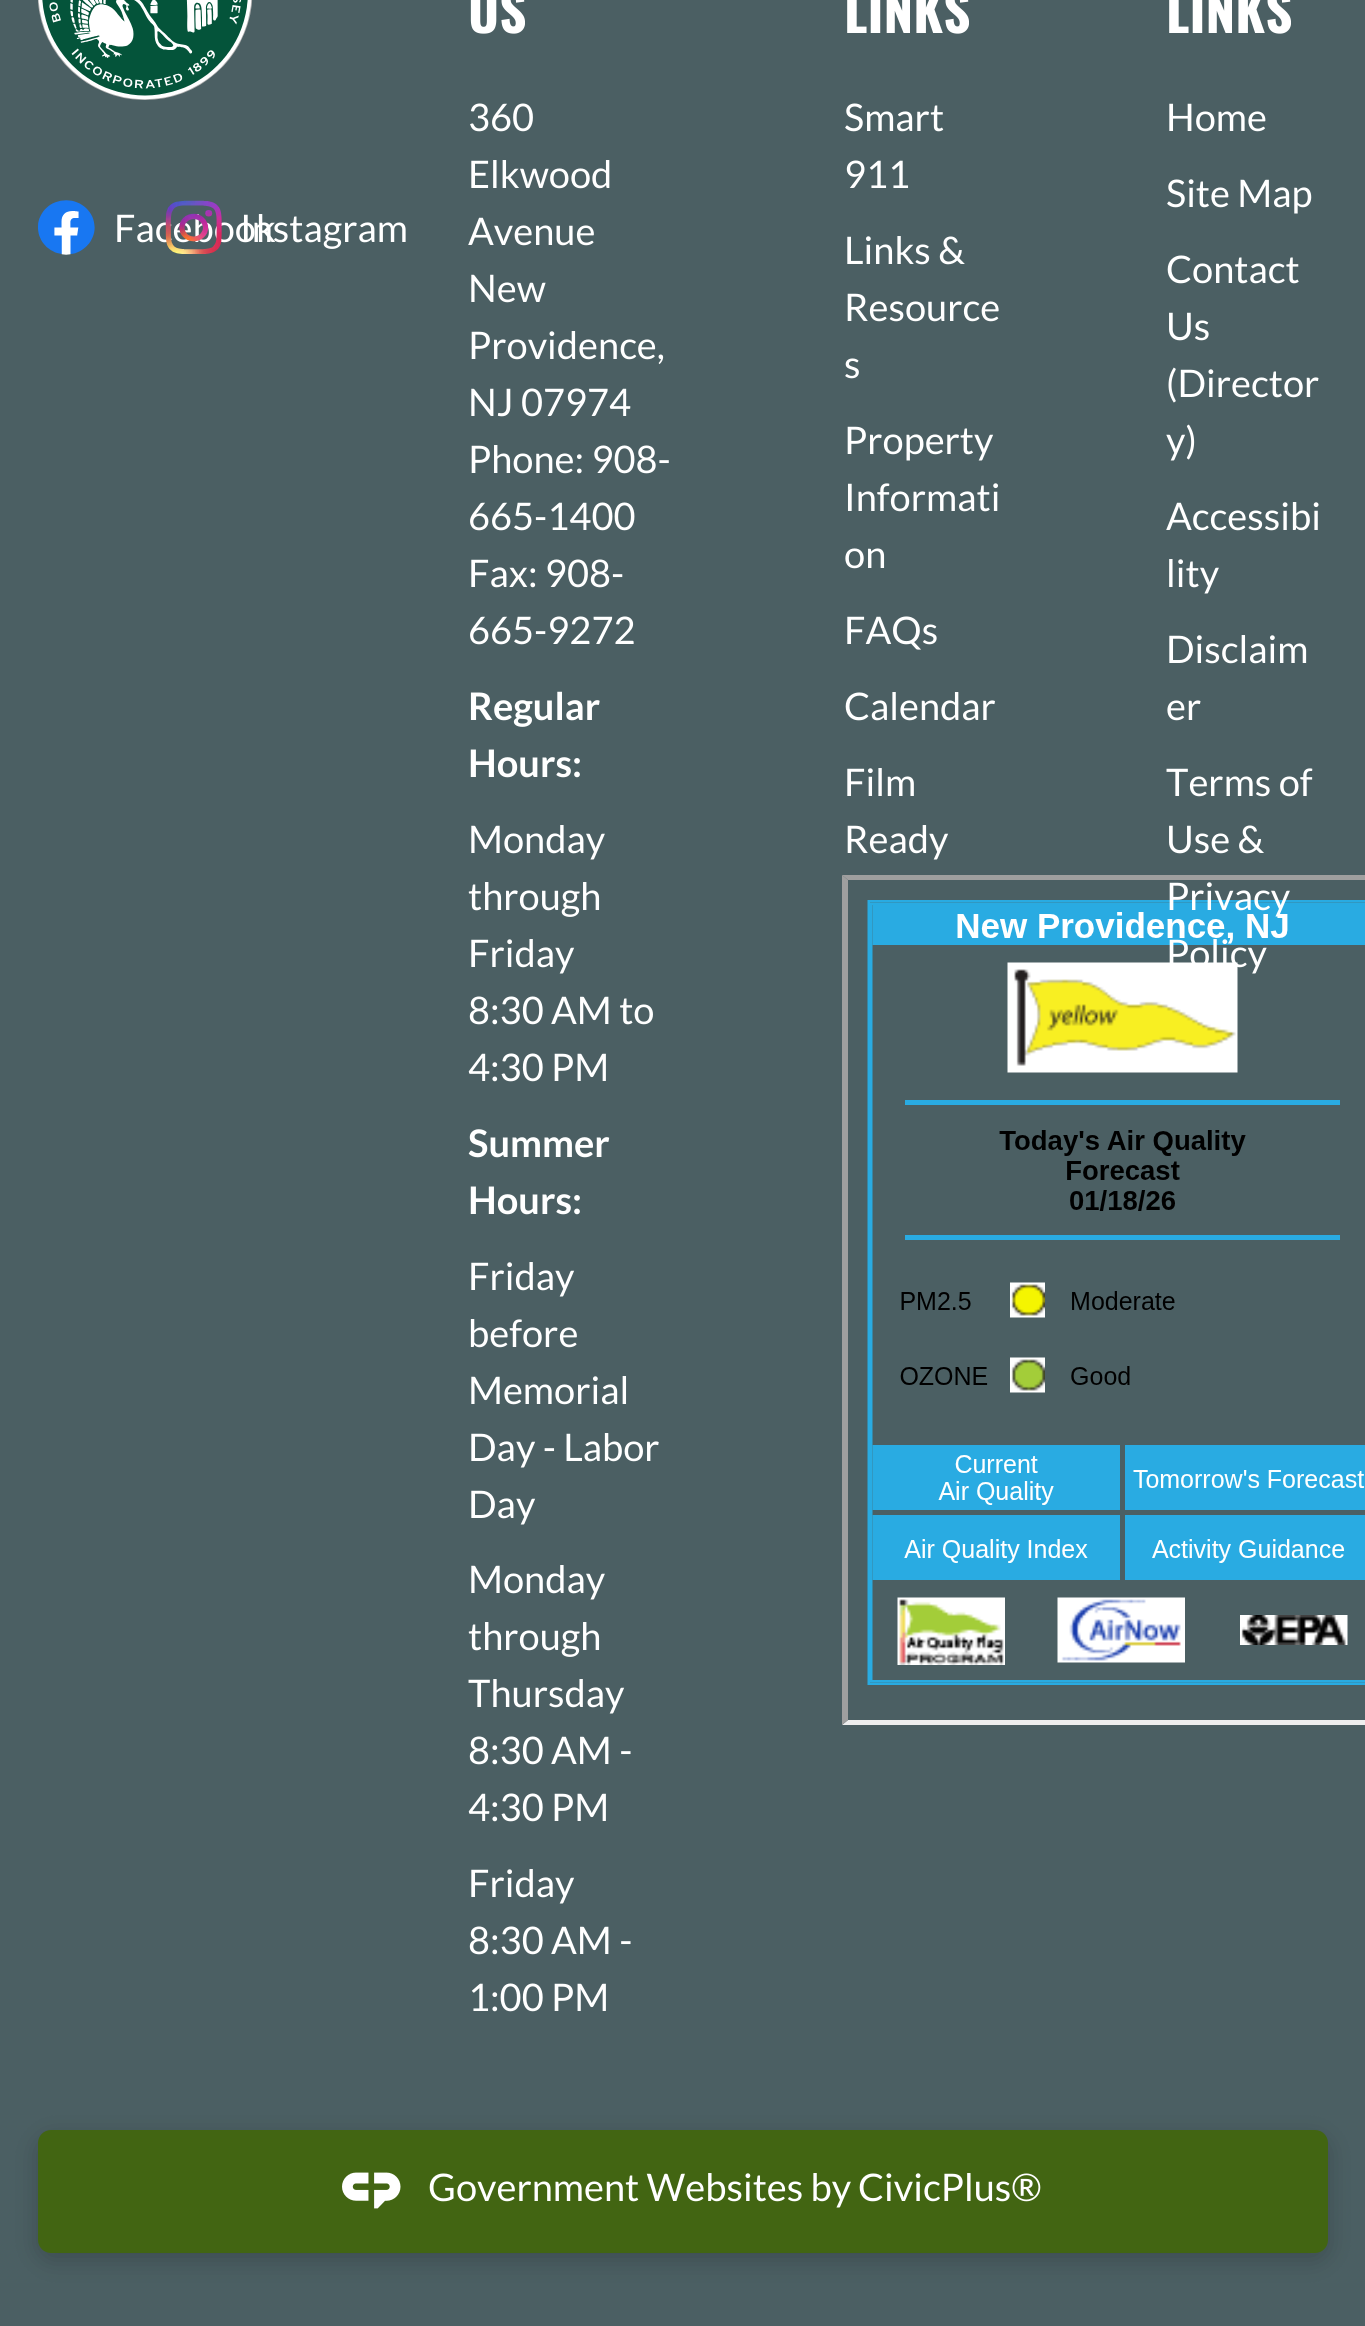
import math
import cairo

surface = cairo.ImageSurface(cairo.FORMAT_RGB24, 1365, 2326)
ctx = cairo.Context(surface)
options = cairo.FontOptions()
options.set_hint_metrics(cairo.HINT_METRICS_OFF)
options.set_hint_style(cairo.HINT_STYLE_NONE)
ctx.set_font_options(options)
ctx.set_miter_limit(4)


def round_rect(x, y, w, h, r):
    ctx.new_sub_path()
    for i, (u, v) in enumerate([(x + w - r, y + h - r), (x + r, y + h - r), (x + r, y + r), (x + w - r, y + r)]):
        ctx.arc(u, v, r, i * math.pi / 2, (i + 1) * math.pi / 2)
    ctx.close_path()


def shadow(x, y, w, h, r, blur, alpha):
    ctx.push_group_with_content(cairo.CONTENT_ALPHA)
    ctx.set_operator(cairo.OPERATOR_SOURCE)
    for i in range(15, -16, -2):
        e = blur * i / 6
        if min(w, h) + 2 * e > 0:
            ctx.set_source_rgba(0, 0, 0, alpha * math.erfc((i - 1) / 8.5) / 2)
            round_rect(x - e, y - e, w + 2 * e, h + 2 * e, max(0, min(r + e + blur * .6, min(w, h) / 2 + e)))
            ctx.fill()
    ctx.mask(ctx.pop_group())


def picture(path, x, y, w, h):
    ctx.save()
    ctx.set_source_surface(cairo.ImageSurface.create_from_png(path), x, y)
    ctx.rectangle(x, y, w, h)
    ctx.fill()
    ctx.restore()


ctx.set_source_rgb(0.294, 0.373, 0.388)
ctx.paint()
picture("img1.png", 38, 0, 215, 100)
picture("img2.png", 38, 200, 57, 55)
ctx.select_font_face("Lato")
ctx.set_font_size(38)
ctx.set_source_rgb(1, 1, 1)
ctx.move_to(114, 242)
ctx.show_text("Facebook")
picture("img3.png", 165, 200, 57, 54)
ctx.move_to(240, 242)
ctx.show_text("Instagram")
ctx.select_font_face("Oswald", cairo.FONT_SLANT_NORMAL, cairo.FONT_WEIGHT_BOLD)
ctx.set_font_size(53)
ctx.move_to(468, 33)
ctx.show_text("US")
ctx.select_font_face("Lato")
ctx.set_font_size(38)
ctx.move_to(468, 131)
ctx.show_text("360")
ctx.move_to(468, 188)
ctx.show_text("Elkwood")
ctx.move_to(468, 245)
ctx.show_text("Avenue")
ctx.move_to(468, 302)
ctx.show_text("New")
ctx.move_to(468, 359)
ctx.show_text("Providence,")
ctx.move_to(468, 416)
ctx.show_text("NJ 07974")
ctx.move_to(468, 473)
ctx.show_text("Phone: 908-")
ctx.move_to(468, 530)
ctx.show_text("665-1400")
ctx.move_to(468, 587)
ctx.show_text("Fax: 908-")
ctx.move_to(468, 644)
ctx.show_text("665-9272")
ctx.select_font_face("Lato", cairo.FONT_SLANT_NORMAL, cairo.FONT_WEIGHT_BOLD)
ctx.move_to(468, 720)
ctx.show_text("Regular")
ctx.move_to(468, 777)
ctx.show_text("Hours:")
ctx.select_font_face("Lato")
ctx.move_to(468, 853)
ctx.show_text("Monday")
ctx.move_to(468, 910)
ctx.show_text("through")
ctx.move_to(468, 967)
ctx.show_text("Friday")
ctx.move_to(468, 1024)
ctx.show_text("8:30 AM to")
ctx.move_to(468, 1081)
ctx.show_text("4:30 PM")
ctx.select_font_face("Lato", cairo.FONT_SLANT_NORMAL, cairo.FONT_WEIGHT_BOLD)
ctx.move_to(468, 1157)
ctx.show_text("Summer")
ctx.move_to(468, 1214)
ctx.show_text("Hours:")
ctx.select_font_face("Lato")
ctx.move_to(468, 1290)
ctx.show_text("Friday")
ctx.move_to(468, 1347)
ctx.show_text("before")
ctx.move_to(468, 1404)
ctx.show_text("Memorial")
ctx.move_to(468, 1461)
ctx.show_text("Day - Labor")
ctx.move_to(468, 1518)
ctx.show_text("Day")
ctx.move_to(468, 1593)
ctx.show_text("Monday")
ctx.move_to(468, 1650)
ctx.show_text("through")
ctx.move_to(468, 1707)
ctx.show_text("Thursday")
ctx.move_to(468, 1764)
ctx.show_text("8:30 AM -")
ctx.move_to(468, 1821)
ctx.show_text("4:30 PM")
ctx.move_to(468, 1897)
ctx.show_text("Friday")
ctx.move_to(468, 1954)
ctx.show_text("8:30 AM -")
ctx.move_to(468, 2011)
ctx.show_text("1:00 PM")
ctx.select_font_face("Oswald", cairo.FONT_SLANT_NORMAL, cairo.FONT_WEIGHT_BOLD)
ctx.set_font_size(53)
ctx.move_to(844, 33)
ctx.show_text("LINKS")
ctx.select_font_face("Lato")
ctx.set_font_size(38)
ctx.move_to(844, 131)
ctx.show_text("Smart")
ctx.move_to(844, 188)
ctx.show_text("911")
ctx.move_to(844, 264)
ctx.show_text("Links &")
ctx.move_to(844, 321)
ctx.show_text("Resource")
ctx.move_to(844, 378)
ctx.show_text("s")
ctx.move_to(844, 454)
ctx.show_text("Property")
ctx.move_to(844, 511)
ctx.show_text("Informati")
ctx.move_to(844, 568)
ctx.show_text("on")
ctx.move_to(844, 644)
ctx.show_text("FAQs")
ctx.move_to(844, 720)
ctx.show_text("Calendar")
ctx.move_to(844, 796)
ctx.show_text("Film")
ctx.move_to(844, 853)
ctx.show_text("Ready")
ctx.set_source_rgb(0.624, 0.624, 0.624)
ctx.new_path()
ctx.move_to(842, 875)
ctx.line_to(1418, 875)
ctx.line_to(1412, 880)
ctx.line_to(848, 880)
ctx.close_path()
ctx.fill()
ctx.set_source_rgb(0.933, 0.933, 0.933)
ctx.new_path()
ctx.move_to(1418, 1725)
ctx.line_to(842, 1725)
ctx.line_to(848, 1720)
ctx.line_to(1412, 1720)
ctx.close_path()
ctx.fill()
ctx.set_source_rgb(0.624, 0.624, 0.624)
ctx.new_path()
ctx.move_to(842, 1725)
ctx.line_to(842, 875)
ctx.line_to(848, 880)
ctx.line_to(848, 1720)
ctx.close_path()
ctx.fill()
picture("img4.png", 867, 900, 498, 785)
ctx.select_font_face("Oswald", cairo.FONT_SLANT_NORMAL, cairo.FONT_WEIGHT_BOLD)
ctx.set_font_size(53)
ctx.set_source_rgb(1, 1, 1)
ctx.move_to(1166, 33)
ctx.show_text("LINKS")
ctx.select_font_face("Lato")
ctx.set_font_size(38)
ctx.move_to(1166, 131)
ctx.show_text("Home")
ctx.move_to(1166, 207)
ctx.show_text("Site Map")
ctx.move_to(1166, 283)
ctx.show_text("Contact")
ctx.move_to(1166, 340)
ctx.show_text("Us")
ctx.move_to(1166, 397)
ctx.show_text("(Director")
ctx.move_to(1166, 454)
ctx.show_text("y)")
ctx.move_to(1166, 530)
ctx.show_text("Accessibi")
ctx.move_to(1166, 587)
ctx.show_text("lity")
ctx.move_to(1166, 663)
ctx.show_text("Disclaim")
ctx.move_to(1166, 720)
ctx.show_text("er")
ctx.move_to(1166, 796)
ctx.show_text("Terms of")
ctx.move_to(1166, 853)
ctx.show_text("Use &")
ctx.move_to(1166, 910)
ctx.show_text("Privacy")
ctx.move_to(1166, 967)
ctx.show_text("Policy")
ctx.set_source_rgb(0, 0, 0)
shadow(38, 2138, 1290, 122, 13, 12.5, 0.2)
ctx.set_source_rgb(0.259, 0.396, 0.071)
round_rect(38, 2130, 1290, 123, 13)
ctx.fill()
picture("img5.png", 342, 2172, 59, 37)
ctx.set_source_rgb(1, 1, 1)
ctx.move_to(428, 2201)
ctx.show_text("Government Websites by")
ctx.move_to(858, 2201)
ctx.show_text("CivicPlus®")
surface.write_to_png("page.png")
